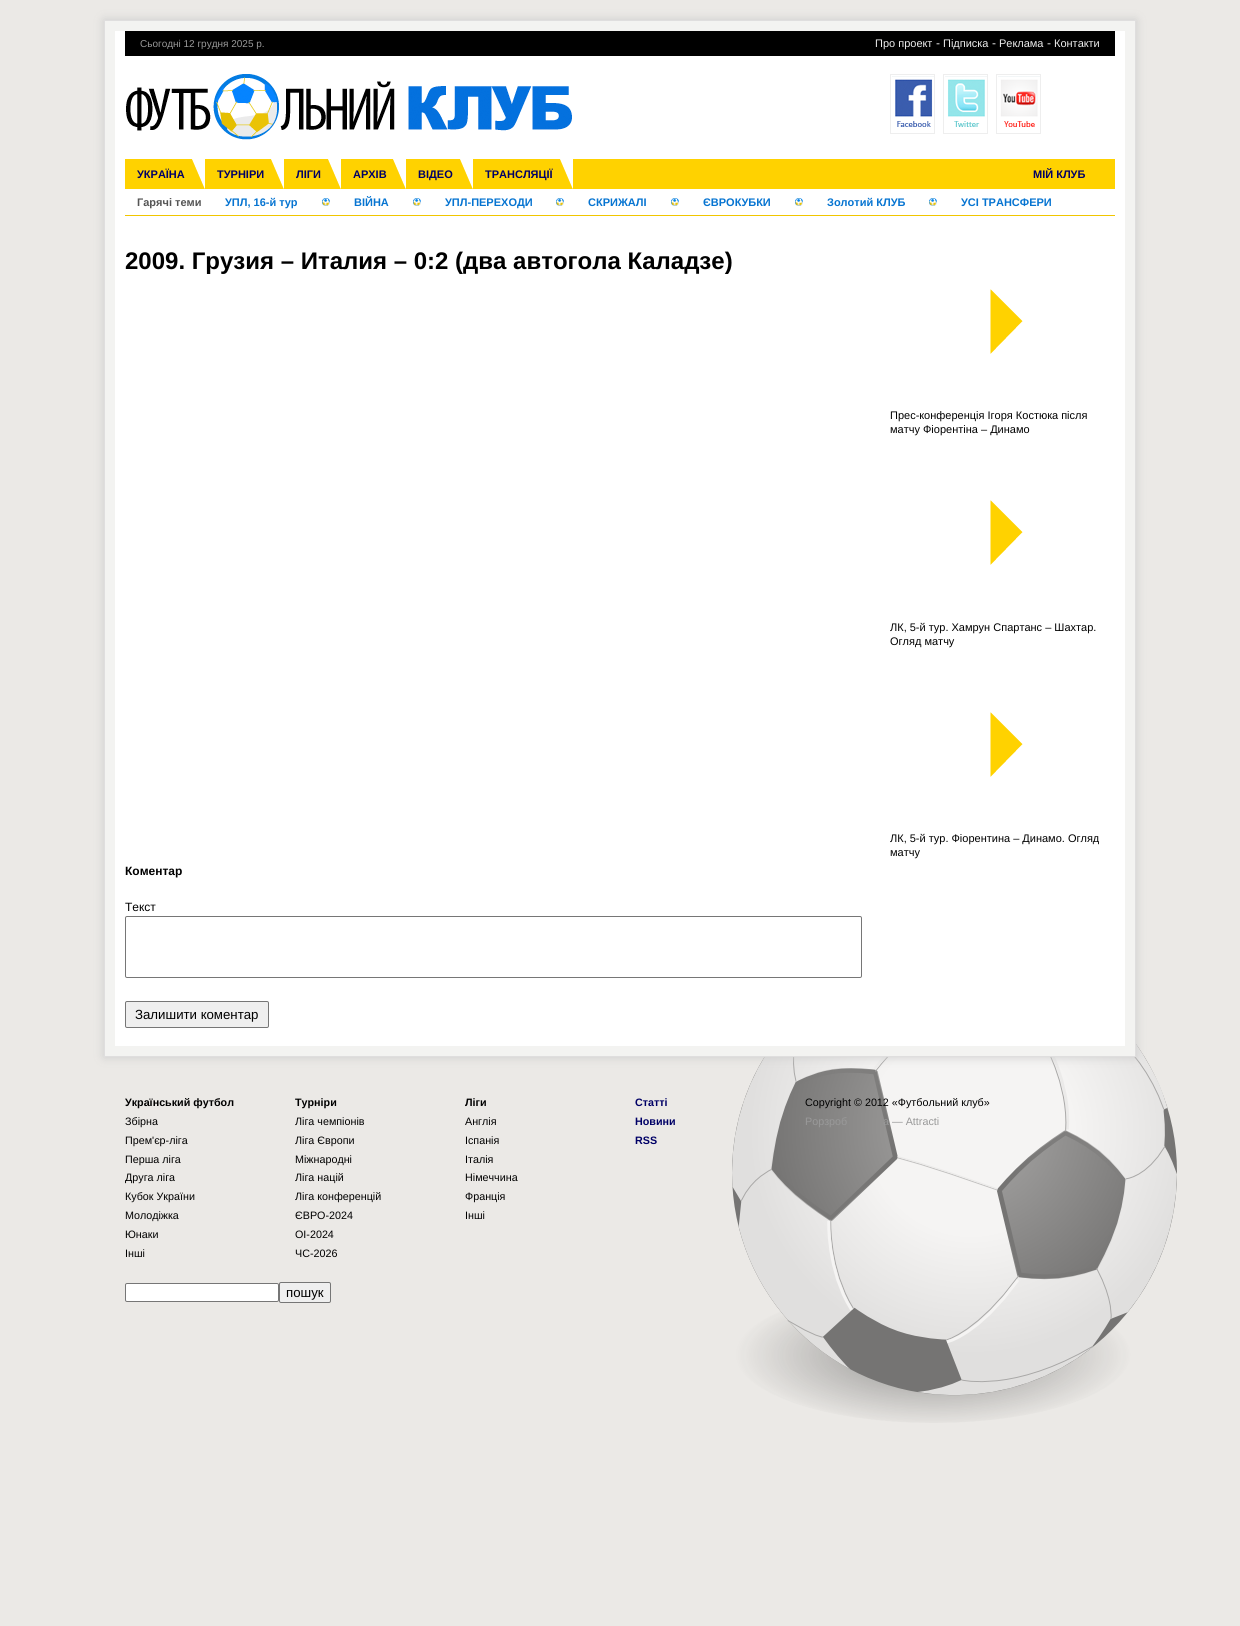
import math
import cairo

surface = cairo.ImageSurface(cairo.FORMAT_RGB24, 1240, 1626)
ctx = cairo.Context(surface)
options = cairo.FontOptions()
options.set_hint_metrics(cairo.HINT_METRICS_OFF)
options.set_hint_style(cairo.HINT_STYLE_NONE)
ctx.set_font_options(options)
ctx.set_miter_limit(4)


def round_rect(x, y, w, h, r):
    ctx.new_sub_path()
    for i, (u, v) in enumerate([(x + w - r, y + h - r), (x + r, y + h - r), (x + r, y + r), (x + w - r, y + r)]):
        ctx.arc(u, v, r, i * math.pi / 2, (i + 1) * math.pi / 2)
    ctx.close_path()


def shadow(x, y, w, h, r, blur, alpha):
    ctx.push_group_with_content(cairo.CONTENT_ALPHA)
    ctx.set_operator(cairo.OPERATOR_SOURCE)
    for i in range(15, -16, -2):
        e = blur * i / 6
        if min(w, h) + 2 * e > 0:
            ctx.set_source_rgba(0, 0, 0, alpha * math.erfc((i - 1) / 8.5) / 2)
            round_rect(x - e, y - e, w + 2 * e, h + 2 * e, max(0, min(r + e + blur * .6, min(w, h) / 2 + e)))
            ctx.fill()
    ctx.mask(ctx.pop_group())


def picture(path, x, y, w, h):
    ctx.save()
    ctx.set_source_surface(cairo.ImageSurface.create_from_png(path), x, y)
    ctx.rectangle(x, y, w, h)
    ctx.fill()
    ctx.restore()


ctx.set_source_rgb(0.918, 0.914, 0.902)
ctx.paint()
picture("img1.png", 732, 1044, 445, 379)
ctx.set_source_rgb(0.8, 0.8, 0.8)
shadow(104, 20, 1032, 1037, 0, 5, 1)
ctx.set_source_rgb(0.953, 0.953, 0.945)
ctx.rectangle(104.5, 20.5, 1031, 1036)
ctx.fill_preserve()
ctx.set_source_rgb(0.875, 0.871, 0.871)
ctx.set_line_width(1)
ctx.stroke()
ctx.set_source_rgb(1, 1, 1)
ctx.rectangle(115, 31, 1010, 1015)
ctx.fill()
ctx.set_source_rgb(0, 0, 0)
ctx.rectangle(125, 31, 990, 25)
ctx.fill()
ctx.select_font_face("Liberation Sans")
ctx.set_font_size(10)
ctx.set_source_rgb(0.6, 0.6, 0.6)
ctx.move_to(140, 47)
ctx.show_text("Сьогодні 12 грудня 2025 р.")
ctx.set_font_size(11)
ctx.set_source_rgb(0.933, 0.933, 0.933)
ctx.move_to(875, 47)
ctx.show_text("Про проект")
ctx.set_font_size(12)
ctx.move_to(936, 47)
ctx.show_text("-")
ctx.set_font_size(11)
ctx.move_to(943, 47)
ctx.show_text("Підписка")
ctx.set_font_size(12)
ctx.move_to(992, 47)
ctx.show_text("-")
ctx.set_font_size(11)
ctx.move_to(999, 47)
ctx.show_text("Реклама")
ctx.set_font_size(12)
ctx.move_to(1047, 47)
ctx.show_text("-")
ctx.set_font_size(11)
ctx.move_to(1054, 47)
ctx.show_text("Контакти")
picture("img2.png", 126, 74, 446, 66)
picture("img3.png", 892, 76, 42, 51)
ctx.rectangle(890.5, 74.5, 44, 59)
ctx.stroke()
picture("img4.png", 945, 76, 42, 51)
ctx.rectangle(943.5, 74.5, 44, 59)
ctx.stroke()
picture("img5.png", 998, 76, 42, 51)
ctx.rectangle(996.5, 74.5, 44, 59)
ctx.stroke()
ctx.set_source_rgb(1, 0.824, 0)
ctx.rectangle(125, 159, 990, 30)
ctx.fill()
picture("img6.png", 192, 159, 13, 30)
ctx.select_font_face("Liberation Sans", cairo.FONT_SLANT_NORMAL, cairo.FONT_WEIGHT_BOLD)
ctx.set_source_rgb(0, 0, 0.4)
ctx.move_to(137, 178)
ctx.show_text("УКРАЇНА")
picture("img6.png", 271, 159, 13, 30)
ctx.move_to(217, 178)
ctx.show_text("ТУРНІРИ")
picture("img6.png", 328, 159, 13, 30)
ctx.move_to(296, 178)
ctx.show_text("ЛІГИ")
picture("img6.png", 393, 159, 13, 30)
ctx.move_to(353, 178)
ctx.show_text("АРХІВ")
picture("img6.png", 460, 159, 13, 30)
ctx.move_to(418, 178)
ctx.show_text("ВІДЕО")
picture("img6.png", 560, 159, 13, 30)
ctx.move_to(485, 178)
ctx.show_text("ТРАНСЛЯЦІЇ")
ctx.move_to(1033, 178)
ctx.show_text("МІЙ КЛУБ")
ctx.set_source_rgb(0.945, 0.776, 0)
ctx.rectangle(125, 215, 990, 1)
ctx.fill()
ctx.set_source_rgb(0.333, 0.333, 0.333)
ctx.move_to(137, 206)
ctx.show_text("Гарячі теми")
ctx.set_source_rgb(0.027, 0.455, 0.82)
ctx.move_to(225, 206)
ctx.show_text("УПЛ, 16-й тур")
picture("img7.png", 322, 198, 8, 8)
ctx.move_to(354, 206)
ctx.show_text("ВІЙНА")
picture("img7.png", 413, 198, 8, 8)
ctx.move_to(445, 206)
ctx.show_text("УПЛ-ПЕРЕХОДИ")
picture("img7.png", 556, 198, 8, 8)
ctx.move_to(588, 206)
ctx.show_text("СКРИЖАЛІ")
picture("img7.png", 671, 198, 8, 8)
ctx.move_to(703, 206)
ctx.show_text("ЄВРОКУБКИ")
picture("img7.png", 795, 198, 8, 8)
ctx.move_to(827, 206)
ctx.show_text("Золотий КЛУБ")
picture("img7.png", 929, 198, 8, 8)
ctx.move_to(961, 206)
ctx.show_text("УСІ ТРАНСФЕРИ")
ctx.set_font_size(24)
ctx.set_source_rgb(0, 0, 0)
ctx.move_to(125, 269)
ctx.show_text("2009. Грузия – Италия – 0:2 (два автогола Каладзе)")
ctx.set_font_size(12)
ctx.move_to(125, 875)
ctx.show_text("Коментар")
ctx.select_font_face("Liberation Sans")
ctx.move_to(125, 911)
ctx.show_text("Текст")
round_rect(125.5, 916.5, 736, 61, 1.5)
ctx.set_source_rgb(0.463, 0.463, 0.463)
ctx.stroke()
ctx.set_source_rgb(0.937, 0.937, 0.937)
round_rect(125.5, 1001.5, 143, 26, 1.5)
ctx.fill_preserve()
ctx.set_source_rgb(0.463, 0.463, 0.463)
ctx.stroke()
ctx.set_font_size(13.25)
ctx.set_source_rgb(0, 0, 0)
ctx.move_to(135, 1019)
ctx.show_text("Залишити коментар")
picture("img8.png", 990, 289, 33, 65)
ctx.set_font_size(11)
ctx.move_to(890, 419)
ctx.show_text("Прес-конференція Ігоря Костюка після")
ctx.move_to(890, 433)
ctx.show_text("матчу Фіорентіна – Динамо")
picture("img8.png", 990, 500, 33, 65)
ctx.move_to(890, 631)
ctx.show_text("ЛК, 5-й тур. Хамрун Спартанс – Шахтар.")
ctx.move_to(890, 645)
ctx.show_text("Огляд матчу")
picture("img8.png", 990, 712, 33, 65)
ctx.move_to(890, 842)
ctx.show_text("ЛК, 5-й тур. Фіорентина – Динамо. Огляд")
ctx.move_to(890, 856)
ctx.show_text("матчу")
ctx.select_font_face("Liberation Sans", cairo.FONT_SLANT_NORMAL, cairo.FONT_WEIGHT_BOLD)
ctx.set_font_size(10.75)
ctx.move_to(125, 1106)
ctx.show_text("Українcький футбол")
ctx.select_font_face("Liberation Sans")
ctx.move_to(125, 1125)
ctx.show_text("Збірна")
ctx.move_to(125, 1144)
ctx.show_text("Прем'єр-ліга")
ctx.move_to(125, 1163)
ctx.show_text("Перша ліга")
ctx.move_to(125, 1181)
ctx.show_text("Друга ліга")
ctx.move_to(125, 1200)
ctx.show_text("Кубок України")
ctx.move_to(125, 1219)
ctx.show_text("Молодіжка")
ctx.move_to(125, 1238)
ctx.show_text("Юнаки")
ctx.move_to(125, 1257)
ctx.show_text("Інші")
ctx.set_source_rgb(1, 1, 1)
round_rect(125.5, 1283.5, 153, 18, 1.5)
ctx.fill_preserve()
ctx.set_source_rgb(0.463, 0.463, 0.463)
ctx.stroke()
ctx.set_source_rgb(0.937, 0.937, 0.937)
round_rect(279.5, 1282.5, 51, 20, 1.5)
ctx.fill_preserve()
ctx.set_source_rgb(0.463, 0.463, 0.463)
ctx.stroke()
ctx.set_font_size(13.25)
ctx.set_source_rgb(0, 0, 0)
ctx.move_to(286, 1297)
ctx.show_text("пошук")
ctx.select_font_face("Liberation Sans", cairo.FONT_SLANT_NORMAL, cairo.FONT_WEIGHT_BOLD)
ctx.set_font_size(10.75)
ctx.move_to(295, 1106)
ctx.show_text("Турніри")
ctx.select_font_face("Liberation Sans")
ctx.move_to(295, 1125)
ctx.show_text("Ліга чемпіонів")
ctx.move_to(295, 1144)
ctx.show_text("Ліга Європи")
ctx.move_to(295, 1163)
ctx.show_text("Міжнародні")
ctx.move_to(295, 1181)
ctx.show_text("Ліга націй")
ctx.move_to(295, 1200)
ctx.show_text("Ліга конференцій")
ctx.move_to(295, 1219)
ctx.show_text("ЄВРО-2024")
ctx.move_to(295, 1238)
ctx.show_text("OI-2024")
ctx.move_to(295, 1257)
ctx.show_text("ЧС-2026")
ctx.select_font_face("Liberation Sans", cairo.FONT_SLANT_NORMAL, cairo.FONT_WEIGHT_BOLD)
ctx.move_to(465, 1106)
ctx.show_text("Ліги")
ctx.select_font_face("Liberation Sans")
ctx.move_to(465, 1125)
ctx.show_text("Англія")
ctx.move_to(465, 1144)
ctx.show_text("Іспанія")
ctx.move_to(465, 1163)
ctx.show_text("Італія")
ctx.move_to(465, 1181)
ctx.show_text("Німеччина")
ctx.move_to(465, 1200)
ctx.show_text("Франція")
ctx.move_to(465, 1219)
ctx.show_text("Інші")
ctx.select_font_face("Liberation Sans", cairo.FONT_SLANT_NORMAL, cairo.FONT_WEIGHT_BOLD)
ctx.set_source_rgb(0, 0, 0.4)
ctx.move_to(635, 1106)
ctx.show_text("Статті")
ctx.move_to(635, 1125)
ctx.show_text("Новини")
ctx.move_to(635, 1144)
ctx.show_text("RSS")
ctx.select_font_face("Liberation Sans")
ctx.set_source_rgb(0, 0, 0)
ctx.move_to(805, 1106)
ctx.show_text("Copyright © 2012 «Футбольний клуб»")
ctx.set_source_rgb(0.6, 0.6, 0.6)
ctx.move_to(805, 1125)
ctx.show_text("Рорзроб")
ctx.move_to(883, 1125)
ctx.show_text("а — Attracti")
surface.write_to_png("page.png")
